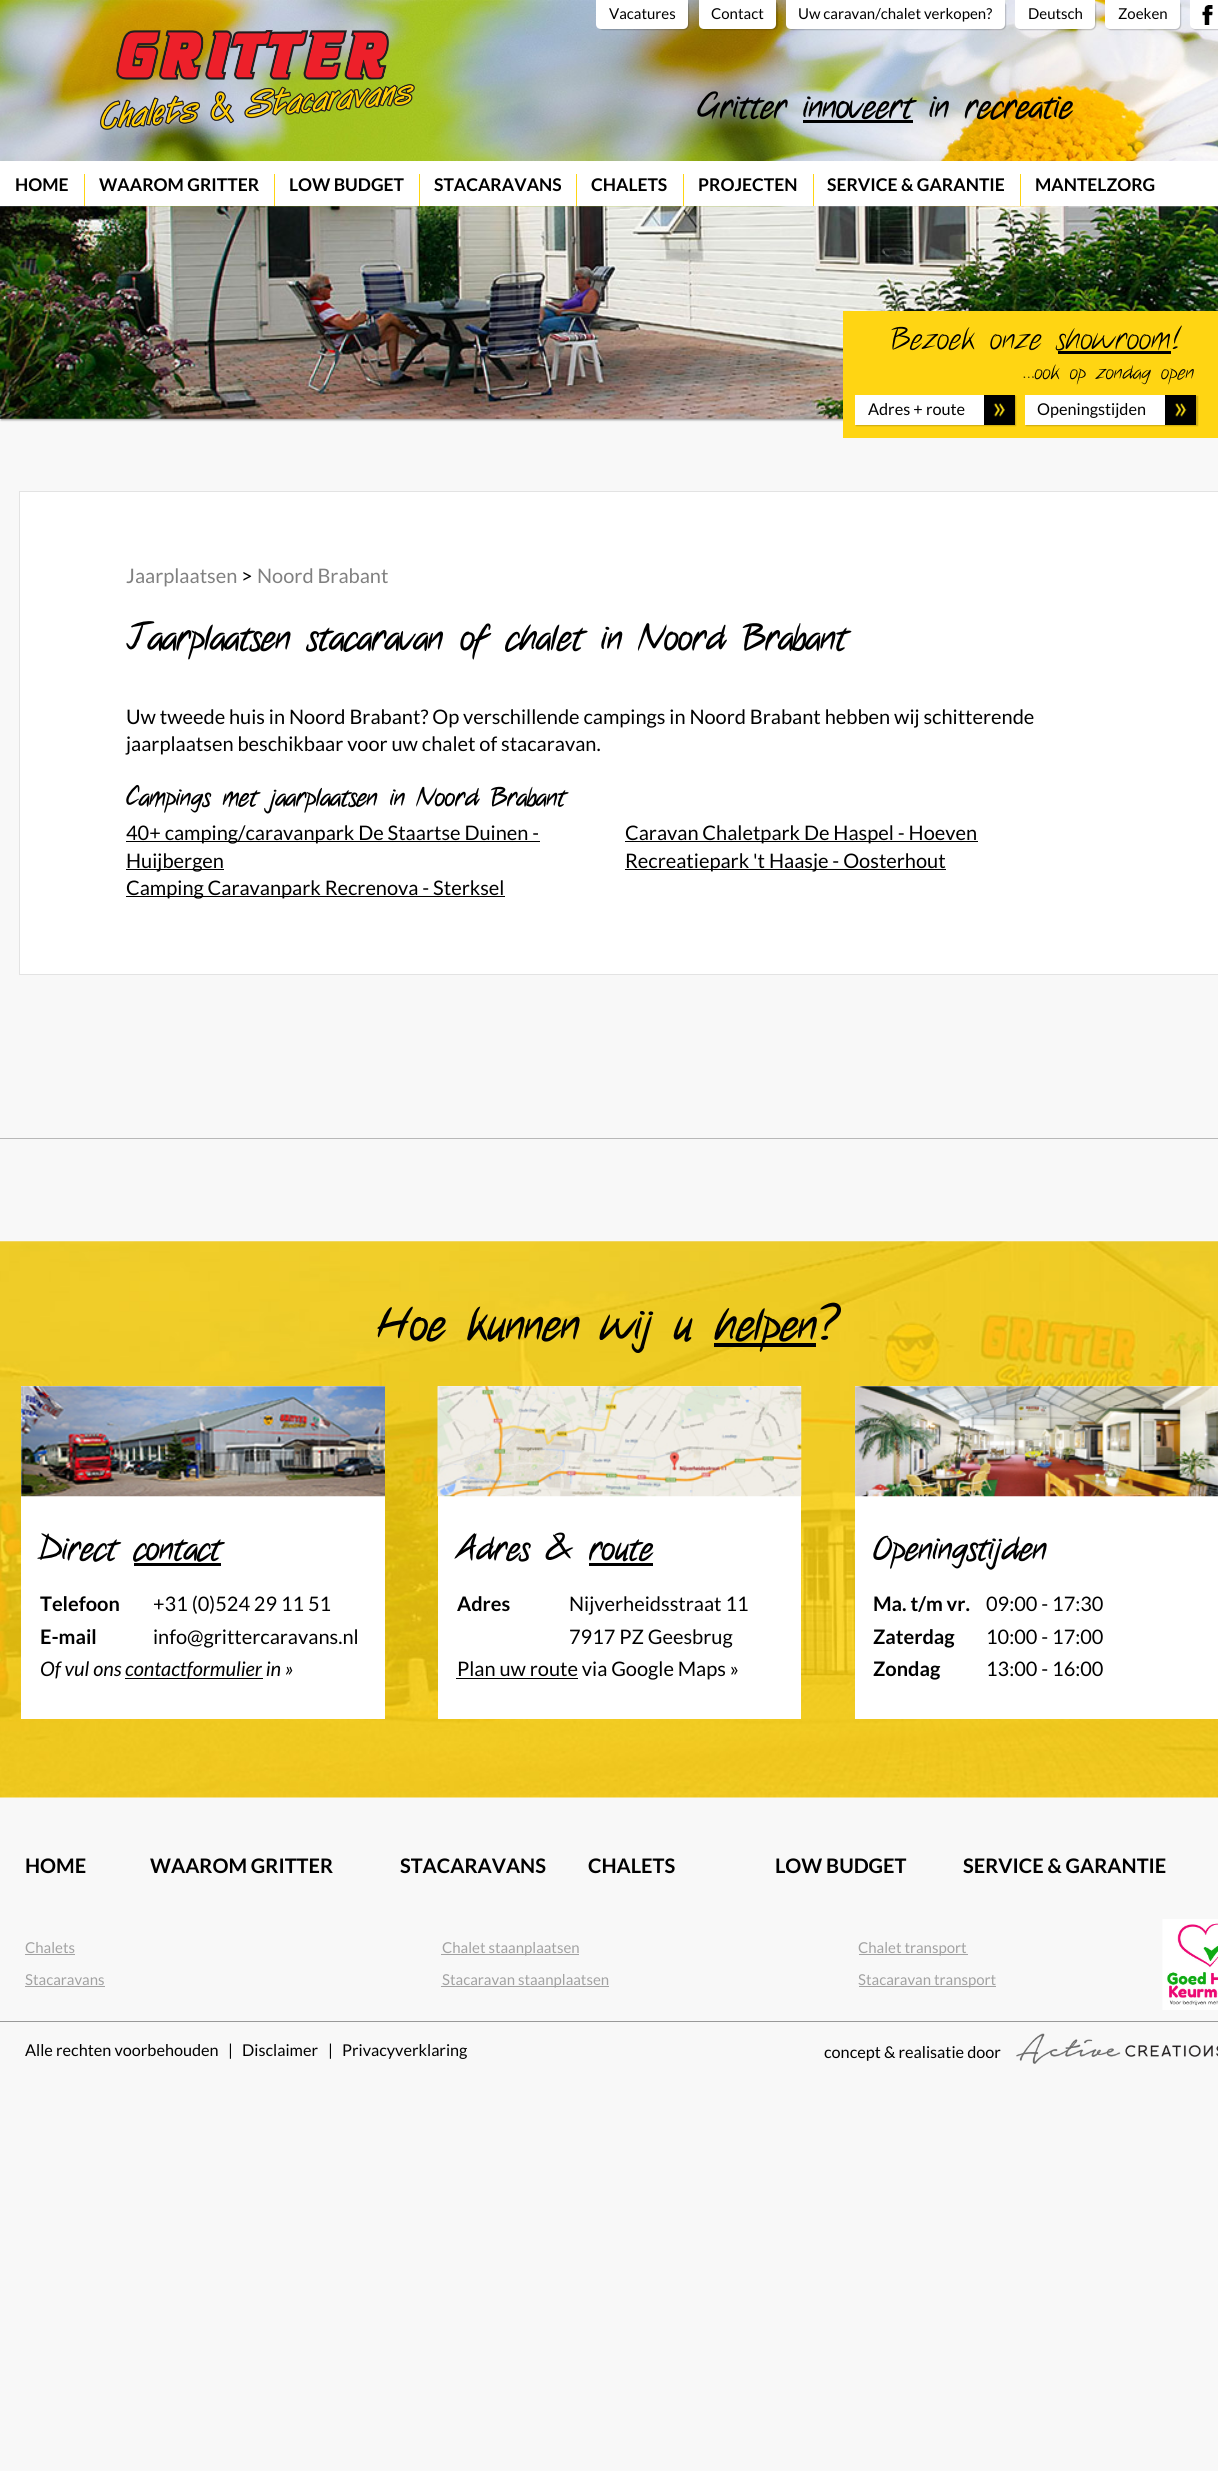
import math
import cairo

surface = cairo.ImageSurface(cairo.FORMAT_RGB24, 1218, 2471)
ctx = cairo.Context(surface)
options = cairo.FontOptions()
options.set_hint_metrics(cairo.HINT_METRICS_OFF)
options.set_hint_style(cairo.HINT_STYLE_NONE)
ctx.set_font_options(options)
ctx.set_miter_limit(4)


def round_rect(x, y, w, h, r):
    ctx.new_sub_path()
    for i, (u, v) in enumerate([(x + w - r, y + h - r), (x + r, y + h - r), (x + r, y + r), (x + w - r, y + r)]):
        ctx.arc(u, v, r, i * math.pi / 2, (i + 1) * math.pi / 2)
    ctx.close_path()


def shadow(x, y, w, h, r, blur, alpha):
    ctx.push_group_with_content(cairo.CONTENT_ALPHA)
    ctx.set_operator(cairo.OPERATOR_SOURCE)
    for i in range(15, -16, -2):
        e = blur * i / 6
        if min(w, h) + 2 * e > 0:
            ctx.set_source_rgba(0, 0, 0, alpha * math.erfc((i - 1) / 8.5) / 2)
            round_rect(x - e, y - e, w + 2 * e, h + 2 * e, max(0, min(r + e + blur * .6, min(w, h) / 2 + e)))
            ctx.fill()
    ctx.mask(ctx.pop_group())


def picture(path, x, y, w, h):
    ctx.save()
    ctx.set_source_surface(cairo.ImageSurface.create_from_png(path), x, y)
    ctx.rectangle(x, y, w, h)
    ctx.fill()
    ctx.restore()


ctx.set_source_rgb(0.969, 0.969, 0.969)
ctx.paint()
picture("img1.png", 0, 0, 1218, 207)
ctx.set_source_rgb(0, 0, 0)
shadow(598, 1, 91, 29, 5, 0.5, 0.2)
ctx.set_source_rgb(1, 1, 1)
ctx.new_path()
ctx.move_to(596, 0)
ctx.line_to(688, 0)
ctx.line_to(688, 24)
ctx.curve_to(688, 27, 686, 29, 683, 29)
ctx.line_to(601, 29)
ctx.curve_to(598, 29, 596, 27, 596, 24)
ctx.close_path()
ctx.fill()
ctx.select_font_face("Lato")
ctx.set_font_size(15)
ctx.set_source_rgb(0, 0, 0)
ctx.move_to(609, 19)
ctx.show_text("Vacatures")
ctx.set_source_rgb(0, 0, 0)
shadow(700, 1, 78, 29, 5, 0.5, 0.2)
ctx.set_source_rgb(1, 1, 1)
ctx.new_path()
ctx.move_to(699, 0)
ctx.line_to(776, 0)
ctx.line_to(776, 24)
ctx.curve_to(776, 27, 774, 29, 771, 29)
ctx.line_to(704, 29)
ctx.curve_to(701, 29, 699, 27, 699, 24)
ctx.close_path()
ctx.fill()
ctx.set_source_rgb(0, 0, 0)
ctx.move_to(711, 19)
ctx.show_text("Contact")
ctx.set_source_rgb(0, 0, 0)
shadow(788, 1, 218, 29, 5, 0.5, 0.2)
ctx.set_source_rgb(1, 1, 1)
ctx.new_path()
ctx.move_to(786, 0)
ctx.line_to(1005, 0)
ctx.line_to(1005, 24)
ctx.curve_to(1005, 27, 1003, 29, 1000, 29)
ctx.line_to(791, 29)
ctx.curve_to(788, 29, 786, 27, 786, 24)
ctx.close_path()
ctx.fill()
ctx.set_source_rgb(0, 0, 0)
ctx.move_to(798, 19)
ctx.show_text("Uw caravan/chalet verkopen?")
ctx.set_source_rgb(0, 0, 0)
shadow(1016, 1, 80, 29, 5, 0.5, 0.2)
ctx.set_source_rgb(1, 1, 1)
ctx.new_path()
ctx.move_to(1015, 0)
ctx.line_to(1095, 0)
ctx.line_to(1095, 24)
ctx.curve_to(1095, 27, 1093, 29, 1090, 29)
ctx.line_to(1020, 29)
ctx.curve_to(1017, 29, 1015, 27, 1015, 24)
ctx.close_path()
ctx.fill()
ctx.set_source_rgb(0, 0, 0)
ctx.move_to(1028, 19)
ctx.show_text("Deutsch")
ctx.set_source_rgb(0, 0, 0)
shadow(1106, 1, 75, 29, 5, 0.5, 0.2)
ctx.set_source_rgb(1, 1, 1)
ctx.new_path()
ctx.move_to(1105, 0)
ctx.line_to(1180, 0)
ctx.line_to(1180, 24)
ctx.curve_to(1180, 27, 1178, 29, 1175, 29)
ctx.line_to(1110, 29)
ctx.curve_to(1107, 29, 1105, 27, 1105, 24)
ctx.close_path()
ctx.fill()
ctx.set_source_rgb(0, 0, 0)
ctx.move_to(1118, 19)
ctx.show_text("Zoeken")
ctx.set_source_rgb(0, 0, 0)
shadow(1191, 1, 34, 29, 5, 0.5, 0.2)
ctx.set_source_rgb(1, 1, 1)
ctx.new_path()
ctx.move_to(1190, 0)
ctx.line_to(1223, 0)
ctx.line_to(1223, 24)
ctx.curve_to(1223, 27, 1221, 29, 1218, 29)
ctx.line_to(1195, 29)
ctx.curve_to(1192, 29, 1190, 27, 1190, 24)
ctx.close_path()
ctx.fill()
picture("img2.png", 1202, 5, 11, 20)
picture("img3.png", 100, 30, 315, 100)
ctx.select_font_face("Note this", cairo.FONT_SLANT_NORMAL, cairo.FONT_WEIGHT_BOLD)
ctx.set_font_size(32.5)
ctx.set_source_rgb(0, 0, 0)
ctx.move_to(697, 118)
ctx.show_text("Gritter innoveert in recreatie")
ctx.rectangle(803, 120, 110, 3)
ctx.fill()
ctx.set_source_rgb(1, 1, 1)
ctx.rectangle(0, 161, 1218, 45)
ctx.fill()
ctx.select_font_face("Lato", cairo.FONT_SLANT_NORMAL, cairo.FONT_WEIGHT_BOLD)
ctx.set_font_size(17.5)
ctx.set_source_rgb(0, 0, 0)
ctx.move_to(15, 191)
ctx.show_text("HOME")
ctx.set_source_rgb(1, 0.835, 0.078)
ctx.rectangle(84, 174, 1, 32)
ctx.fill()
ctx.set_source_rgb(0, 0, 0)
ctx.move_to(99, 191)
ctx.show_text("WAAROM GRITTER")
ctx.set_source_rgb(1, 0.835, 0.078)
ctx.rectangle(274, 174, 1, 32)
ctx.fill()
ctx.set_source_rgb(0, 0, 0)
ctx.move_to(289, 191)
ctx.show_text("LOW BUDGET")
ctx.set_source_rgb(1, 0.835, 0.078)
ctx.rectangle(419, 174, 1, 32)
ctx.fill()
ctx.set_source_rgb(0, 0, 0)
ctx.move_to(434, 191)
ctx.show_text("STACARAVANS")
ctx.set_source_rgb(1, 0.835, 0.078)
ctx.rectangle(576, 174, 1, 32)
ctx.fill()
ctx.set_source_rgb(0, 0, 0)
ctx.move_to(591, 191)
ctx.show_text("CHALETS")
ctx.set_source_rgb(1, 0.835, 0.078)
ctx.rectangle(683, 174, 1, 32)
ctx.fill()
ctx.set_source_rgb(0, 0, 0)
ctx.move_to(698, 191)
ctx.show_text("PROJECTEN")
ctx.set_source_rgb(1, 0.835, 0.078)
ctx.rectangle(813, 174, 1, 32)
ctx.fill()
ctx.set_source_rgb(0, 0, 0)
ctx.move_to(827, 191)
ctx.show_text("SERVICE & GARANTIE")
ctx.set_source_rgb(1, 0.835, 0.078)
ctx.rectangle(1020, 174, 1, 32)
ctx.fill()
ctx.set_source_rgb(0, 0, 0)
ctx.move_to(1035, 191)
ctx.show_text("MANTELZORG")
ctx.set_source_rgb(0, 0, 0)
shadow(1, 208, 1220, 212, 0, 1, 0.4)
picture("img4.png", 0, 206, 1218, 213)
ctx.set_source_rgb(1, 0.835, 0.078)
ctx.rectangle(843, 311, 375, 127)
ctx.fill()
ctx.select_font_face("Note this")
ctx.set_font_size(30)
ctx.set_source_rgb(0, 0, 0)
ctx.move_to(891, 349)
ctx.show_text("Bezoek onze showroom!")
ctx.rectangle(1058, 351, 113, 3)
ctx.fill()
ctx.set_font_size(20)
ctx.move_to(1023, 379)
ctx.show_text("…ook op zondag open")
ctx.set_source_rgb(0, 0, 0)
shadow(856, 396, 160, 30, 0, 0.5, 0.2)
ctx.set_source_rgb(1, 1, 1)
ctx.rectangle(855, 395, 129, 30)
ctx.fill()
ctx.select_font_face("Lato")
ctx.set_font_size(16.25)
ctx.set_source_rgb(0, 0, 0)
ctx.move_to(868, 415)
ctx.show_text("Adres + route")
ctx.rectangle(984, 395, 31, 30)
ctx.fill()
picture("img5.png", 993, 403, 12, 14)
ctx.set_source_rgb(0, 0, 0)
shadow(1026, 396, 172, 30, 0, 0.5, 0.2)
ctx.set_source_rgb(1, 1, 1)
ctx.rectangle(1025, 395, 140, 30)
ctx.fill()
ctx.set_source_rgb(0, 0, 0)
ctx.move_to(1037, 415)
ctx.show_text("Openingstijden")
ctx.rectangle(1165, 395, 31, 30)
ctx.fill()
picture("img6.png", 1175, 403, 12, 14)
ctx.set_source_rgb(1, 1, 1)
ctx.rectangle(19.5, 491.5, 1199, 483)
ctx.fill_preserve()
ctx.set_source_rgb(0.89, 0.89, 0.89)
ctx.set_line_width(1)
ctx.stroke()
ctx.set_font_size(20)
ctx.set_source_rgb(0.502, 0.502, 0.502)
ctx.move_to(126, 583)
ctx.show_text("Jaarplaatsen")
ctx.set_source_rgb(0, 0, 0)
ctx.move_to(241, 583)
ctx.show_text(">")
ctx.set_source_rgb(0.502, 0.502, 0.502)
ctx.move_to(257, 583)
ctx.show_text("Noord Brabant")
ctx.select_font_face("Note this", cairo.FONT_SLANT_NORMAL, cairo.FONT_WEIGHT_BOLD)
ctx.set_font_size(35)
ctx.set_source_rgb(0, 0, 0)
ctx.move_to(126, 650)
ctx.show_text("Jaarplaatsen stacaravan of chalet in Noord Brabant")
ctx.select_font_face("Lato")
ctx.set_font_size(20)
ctx.move_to(126, 724)
ctx.show_text("Uw tweede huis in Noord Brabant? Op verschillende campings in Noord Brabant hebben wij schitterende")
ctx.move_to(126, 751)
ctx.show_text("jaarplaatsen beschikbaar voor uw chalet of stacaravan.")
ctx.select_font_face("Note this", cairo.FONT_SLANT_NORMAL, cairo.FONT_WEIGHT_BOLD)
ctx.set_font_size(25)
ctx.move_to(126, 806)
ctx.show_text("Campings met jaarplaatsen in Noord Brabant")
ctx.rectangle(126, 841, 414, 1)
ctx.fill()
ctx.select_font_face("Lato")
ctx.set_font_size(20)
ctx.move_to(126, 840)
ctx.show_text("40+ camping/caravanpark De Staartse Duinen -")
ctx.rectangle(126, 869, 98, 1)
ctx.fill()
ctx.move_to(126, 868)
ctx.show_text("Huijbergen")
ctx.rectangle(126, 896, 379, 1)
ctx.fill()
ctx.move_to(126, 895)
ctx.show_text("Camping Caravanpark Recrenova - Sterksel")
ctx.rectangle(625, 841, 353, 1)
ctx.fill()
ctx.move_to(625, 840)
ctx.show_text("Caravan Chaletpark De Haspel - Hoeven")
ctx.rectangle(625, 869, 321, 1)
ctx.fill()
ctx.move_to(625, 868)
ctx.show_text("Recreatiepark 't Haasje - Oosterhout")
ctx.set_source_rgb(0.722, 0.722, 0.722)
ctx.rectangle(0, 1138, 1218, 1)
ctx.fill()
picture("img7.png", 0, 1241, 1218, 557)
ctx.select_font_face("Note this", cairo.FONT_SLANT_NORMAL, cairo.FONT_WEIGHT_BOLD)
ctx.set_font_size(43.75)
ctx.set_source_rgb(0, 0, 0)
ctx.move_to(378, 1340)
ctx.show_text("Hoe kunnen wij u")
ctx.rectangle(714, 1343, 102, 4)
ctx.fill()
ctx.move_to(714, 1340)
ctx.show_text("helpen?")
ctx.set_source_rgb(1, 1, 1)
ctx.rectangle(21, 1386, 364, 333)
ctx.fill()
picture("img8.png", 21, 1386, 364, 111)
ctx.set_font_size(32.5)
ctx.set_source_rgb(0, 0, 0)
ctx.move_to(40, 1560)
ctx.show_text("Direct contact")
ctx.rectangle(134, 1563, 87, 3)
ctx.fill()
ctx.select_font_face("Lato", cairo.FONT_SLANT_NORMAL, cairo.FONT_WEIGHT_BOLD)
ctx.set_font_size(20)
ctx.move_to(40, 1611)
ctx.show_text("Telefoon")
ctx.select_font_face("Lato")
ctx.move_to(153, 1611)
ctx.show_text("+31 (0)524 29 11 51")
ctx.select_font_face("Lato", cairo.FONT_SLANT_NORMAL, cairo.FONT_WEIGHT_BOLD)
ctx.move_to(40, 1644)
ctx.show_text("E-mail")
ctx.select_font_face("Lato")
ctx.move_to(153, 1644)
ctx.show_text("info@grittercaravans.nl")
ctx.select_font_face("Lato", cairo.FONT_SLANT_ITALIC)
ctx.move_to(40, 1676)
ctx.show_text("Of vul ons")
ctx.rectangle(125, 1678, 138, 1)
ctx.fill()
ctx.move_to(125, 1676)
ctx.show_text("contactformulier in »")
ctx.set_source_rgb(1, 1, 1)
ctx.rectangle(438, 1386, 363, 333)
ctx.fill()
picture("img9.png", 437, 1386, 365, 111)
ctx.select_font_face("Note this", cairo.FONT_SLANT_NORMAL, cairo.FONT_WEIGHT_BOLD)
ctx.set_font_size(32.5)
ctx.set_source_rgb(0, 0, 0)
ctx.move_to(457, 1560)
ctx.show_text("Adres & route")
ctx.rectangle(589, 1563, 64, 3)
ctx.fill()
ctx.select_font_face("Lato", cairo.FONT_SLANT_NORMAL, cairo.FONT_WEIGHT_BOLD)
ctx.set_font_size(20)
ctx.move_to(457, 1611)
ctx.show_text("Adres")
ctx.select_font_face("Lato")
ctx.move_to(569, 1611)
ctx.show_text("Nijverheidsstraat 11")
ctx.move_to(569, 1644)
ctx.show_text("7917 PZ Geesbrug")
ctx.rectangle(456, 1678, 122, 1)
ctx.fill()
ctx.move_to(457, 1676)
ctx.show_text("Plan uw route via Google Maps »")
ctx.set_source_rgb(1, 1, 1)
ctx.rectangle(855, 1386, 363, 333)
ctx.fill()
picture("img10.png", 855, 1386, 363, 111)
ctx.select_font_face("Note this", cairo.FONT_SLANT_NORMAL, cairo.FONT_WEIGHT_BOLD)
ctx.set_font_size(32.5)
ctx.set_source_rgb(0, 0, 0)
ctx.move_to(873, 1560)
ctx.show_text("Openingstijden")
ctx.select_font_face("Lato", cairo.FONT_SLANT_NORMAL, cairo.FONT_WEIGHT_BOLD)
ctx.set_font_size(20)
ctx.move_to(873, 1611)
ctx.show_text("Ma. t/m vr.")
ctx.select_font_face("Lato")
ctx.move_to(986, 1611)
ctx.show_text("09:00 - 17:30")
ctx.select_font_face("Lato", cairo.FONT_SLANT_NORMAL, cairo.FONT_WEIGHT_BOLD)
ctx.move_to(873, 1644)
ctx.show_text("Zaterdag")
ctx.select_font_face("Lato")
ctx.move_to(986, 1644)
ctx.show_text("10:00 - 17:00")
ctx.select_font_face("Lato", cairo.FONT_SLANT_NORMAL, cairo.FONT_WEIGHT_BOLD)
ctx.move_to(873, 1676)
ctx.show_text("Zondag")
ctx.select_font_face("Lato")
ctx.move_to(986, 1676)
ctx.show_text("13:00 - 16:00")
ctx.select_font_face("Lato", cairo.FONT_SLANT_NORMAL, cairo.FONT_WEIGHT_BOLD)
ctx.move_to(25, 1873)
ctx.show_text("HOME")
ctx.move_to(150, 1873)
ctx.show_text("WAAROM GRITTER")
ctx.move_to(400, 1873)
ctx.show_text("STACARAVANS")
ctx.move_to(588, 1873)
ctx.show_text("CHALETS")
ctx.move_to(775, 1873)
ctx.show_text("LOW BUDGET")
ctx.move_to(963, 1873)
ctx.show_text("SERVICE & GARANTIE")
ctx.select_font_face("Lato")
ctx.set_font_size(15)
ctx.set_source_rgb(0.635, 0.635, 0.635)
ctx.move_to(25, 1953)
ctx.show_text("Chalets")
ctx.rectangle(25, 1954, 50, 1)
ctx.fill()
ctx.move_to(25, 1985)
ctx.show_text("Stacaravans")
ctx.rectangle(25, 1986, 80, 1)
ctx.fill()
ctx.rectangle(441, 1954, 138, 1)
ctx.fill()
ctx.move_to(442, 1953)
ctx.show_text("Chalet staanplaatsen")
ctx.rectangle(441, 1986, 168, 1)
ctx.fill()
ctx.move_to(442, 1985)
ctx.show_text("Stacaravan staanplaatsen")
ctx.rectangle(859, 1954, 109, 1)
ctx.fill()
ctx.move_to(858, 1953)
ctx.show_text("Chalet transport")
ctx.rectangle(859, 1986, 137, 1)
ctx.fill()
ctx.move_to(858, 1985)
ctx.show_text("Stacaravan transport")
picture("img11.png", 1162, 1919, 56, 91)
ctx.set_source_rgb(0.6, 0.6, 0.6)
ctx.rectangle(0, 2021, 1218, 1)
ctx.fill()
ctx.set_font_size(16.25)
ctx.set_source_rgb(0, 0, 0)
ctx.move_to(25, 2056)
ctx.show_text("Alle rechten voorbehouden")
ctx.move_to(228, 2056)
ctx.show_text("|")
ctx.move_to(242, 2056)
ctx.show_text("Disclaimer")
ctx.move_to(328, 2056)
ctx.show_text("|")
ctx.move_to(342, 2056)
ctx.show_text("Privacyverklaring")
ctx.move_to(824, 2058)
ctx.show_text("concept & realisatie door")
picture("img12.png", 1016, 2033, 202, 31)
surface.write_to_png("page.png")
